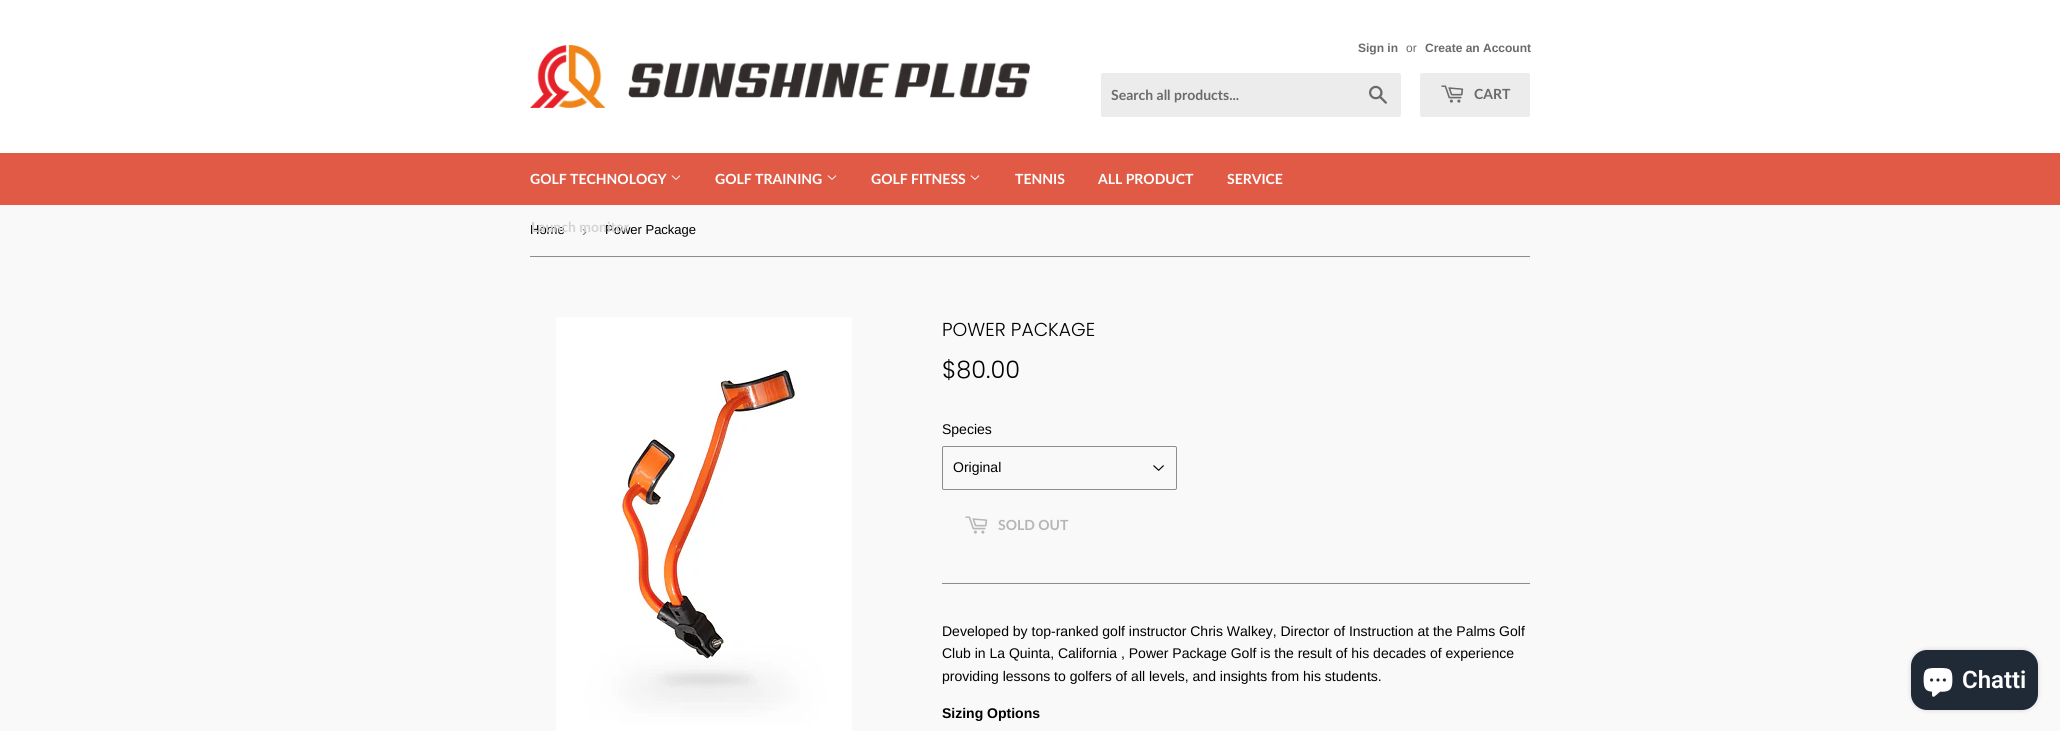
import math
import cairo

surface = cairo.ImageSurface(cairo.FORMAT_RGB24, 2060, 731)
ctx = cairo.Context(surface)
options = cairo.FontOptions()
options.set_hint_metrics(cairo.HINT_METRICS_OFF)
options.set_hint_style(cairo.HINT_STYLE_NONE)
ctx.set_font_options(options)
ctx.set_miter_limit(4)


def round_rect(x, y, w, h, r):
    ctx.new_sub_path()
    for i, (u, v) in enumerate([(x + w - r, y + h - r), (x + r, y + h - r), (x + r, y + r), (x + w - r, y + r)]):
        ctx.arc(u, v, r, i * math.pi / 2, (i + 1) * math.pi / 2)
    ctx.close_path()


def shadow(x, y, w, h, r, blur, alpha):
    ctx.push_group_with_content(cairo.CONTENT_ALPHA)
    ctx.set_operator(cairo.OPERATOR_SOURCE)
    for i in range(15, -16, -2):
        e = blur * i / 6
        if min(w, h) + 2 * e > 0:
            ctx.set_source_rgba(0, 0, 0, alpha * math.erfc((i - 1) / 8.5) / 2)
            round_rect(x - e, y - e, w + 2 * e, h + 2 * e, max(0, min(r + e + blur * .6, min(w, h) / 2 + e)))
            ctx.fill()
    ctx.mask(ctx.pop_group())


def picture(path, x, y, w, h):
    ctx.save()
    ctx.set_source_surface(cairo.ImageSurface.create_from_png(path), x, y)
    ctx.rectangle(x, y, w, h)
    ctx.fill()
    ctx.restore()


ctx.set_source_rgb(0.973, 0.973, 0.973)
ctx.paint()
ctx.set_source_rgb(1, 1, 1)
ctx.rectangle(0, 0, 2060, 153)
ctx.fill()
picture("img1.png", 530, 45, 500, 63)
ctx.select_font_face("Arimo", cairo.FONT_SLANT_NORMAL, cairo.FONT_WEIGHT_BOLD)
ctx.set_font_size(12)
ctx.set_source_rgb(0.416, 0.416, 0.416)
ctx.move_to(1358, 52)
ctx.show_text("Sign in")
ctx.select_font_face("Arimo")
ctx.move_to(1406, 52)
ctx.show_text("or")
ctx.select_font_face("Arimo", cairo.FONT_SLANT_NORMAL, cairo.FONT_WEIGHT_BOLD)
ctx.move_to(1425, 52)
ctx.show_text("Create an Account")
ctx.set_source_rgb(0.925, 0.925, 0.925)
round_rect(1101, 73, 300, 44, 2)
ctx.fill()
ctx.select_font_face("Lato", cairo.FONT_SLANT_NORMAL, cairo.FONT_WEIGHT_BOLD)
ctx.set_font_size(14)
ctx.set_source_rgb(0.416, 0.416, 0.416)
ctx.move_to(1111, 100)
ctx.show_text("Search all products...")
picture("img2.png", 1369, 85, 18, 19)
ctx.set_source_rgb(0.925, 0.925, 0.925)
round_rect(1420, 73, 110, 44, 2)
ctx.fill()
picture("img3.png", 1441, 85, 23, 18)
ctx.set_source_rgb(0.416, 0.416, 0.416)
ctx.move_to(1474, 99)
ctx.show_text("CART")
ctx.set_source_rgb(0.878, 0.353, 0.271)
ctx.rectangle(0, 153, 2060, 52)
ctx.fill()
ctx.set_source_rgb(1, 1, 1)
ctx.move_to(530, 184)
ctx.show_text("GOLF TECHNOLOGY")
picture("img4.png", 671, 175, 10, 5)
ctx.select_font_face("Arimo")
ctx.set_font_size(13)
ctx.set_source_rgb(0, 0, 0)
ctx.move_to(530, 234)
ctx.show_text("Home")
ctx.select_font_face("Liberation Sans")
ctx.set_font_size(15)
ctx.set_source_rgb(0.463, 0.463, 0.463)
ctx.move_to(582, 236)
ctx.show_text("›")
ctx.select_font_face("Arimo")
ctx.set_font_size(13)
ctx.set_source_rgb(0, 0, 0)
ctx.move_to(605, 234)
ctx.show_text("Power Package")
ctx.select_font_face("Lato", cairo.FONT_SLANT_NORMAL, cairo.FONT_WEIGHT_BOLD)
ctx.set_font_size(14)
ctx.set_source_rgb(0.827, 0.827, 0.827)
ctx.move_to(531, 232)
ctx.show_text("Launch monitor")
ctx.set_source_rgb(1, 1, 1)
ctx.move_to(715, 184)
ctx.show_text("GOLF TRAINING")
picture("img4.png", 827, 175, 10, 5)
ctx.move_to(871, 184)
ctx.show_text("GOLF FITNESS")
picture("img4.png", 970, 175, 10, 5)
ctx.move_to(1015, 184)
ctx.show_text("TENNIS")
ctx.move_to(1098, 184)
ctx.show_text("ALL PRODUCT")
ctx.move_to(1227, 184)
ctx.show_text("SERVICE")
ctx.set_source_rgb(0.553, 0.553, 0.553)
ctx.rectangle(530, 256, 1000, 1)
ctx.fill()
picture("img5.png", 556, 317, 296, 414)
ctx.select_font_face("Poppins Light")
ctx.set_font_size(18.75)
ctx.set_source_rgb(0, 0, 0)
ctx.move_to(942, 336)
ctx.show_text("POWER PACKAGE")
ctx.set_font_size(24)
ctx.move_to(942, 378)
ctx.show_text("$80.00")
ctx.select_font_face("Arimo")
ctx.set_font_size(14)
ctx.move_to(942, 434)
ctx.show_text("Species")
picture("img6.png", 1153, 465, 11, 6)
round_rect(942.5, 446.5, 234, 43, 1.5)
ctx.set_source_rgb(0.553, 0.553, 0.553)
ctx.set_line_width(1)
ctx.stroke()
ctx.set_source_rgb(0, 0, 0)
ctx.move_to(953, 472)
ctx.show_text("Original")
picture("img7.png", 965, 516, 23, 18)
ctx.select_font_face("Lato", cairo.FONT_SLANT_NORMAL, cairo.FONT_WEIGHT_BOLD)
ctx.set_source_rgb(0.714, 0.714, 0.714)
ctx.move_to(998, 530)
ctx.show_text("SOLD OUT")
ctx.set_source_rgb(0.553, 0.553, 0.553)
ctx.rectangle(942, 583, 588, 1)
ctx.fill()
ctx.select_font_face("Arimo")
ctx.set_source_rgb(0, 0, 0)
ctx.move_to(942, 636)
ctx.show_text("Developed by top-ranked golf instructor Chris Walkey, Director of Instruction at the Palms Golf")
ctx.move_to(942, 658)
ctx.show_text("Club in La Quinta, California , Power Package Golf is the result of his decades of experience")
ctx.move_to(942, 681)
ctx.show_text("providing lessons to golfers of all levels, and insights from his students.")
ctx.select_font_face("Arimo", cairo.FONT_SLANT_NORMAL, cairo.FONT_WEIGHT_BOLD)
ctx.move_to(942, 718)
ctx.show_text("Sizing Options")
ctx.set_source_rgb(0, 0, 0)
shadow(1911, 650, 127, 60, 16, 2.5, 0.15)
ctx.set_source_rgb(0.125, 0.165, 0.212)
round_rect(1911, 650, 127, 60, 16)
ctx.fill()
picture("img8.png", 1923, 668, 30, 29)
ctx.select_font_face("Roboto SemiBold")
ctx.set_font_size(24)
ctx.set_source_rgb(1, 1, 1)
ctx.move_to(1962, 688)
ctx.show_text("Chatti")
surface.write_to_png("page.png")
